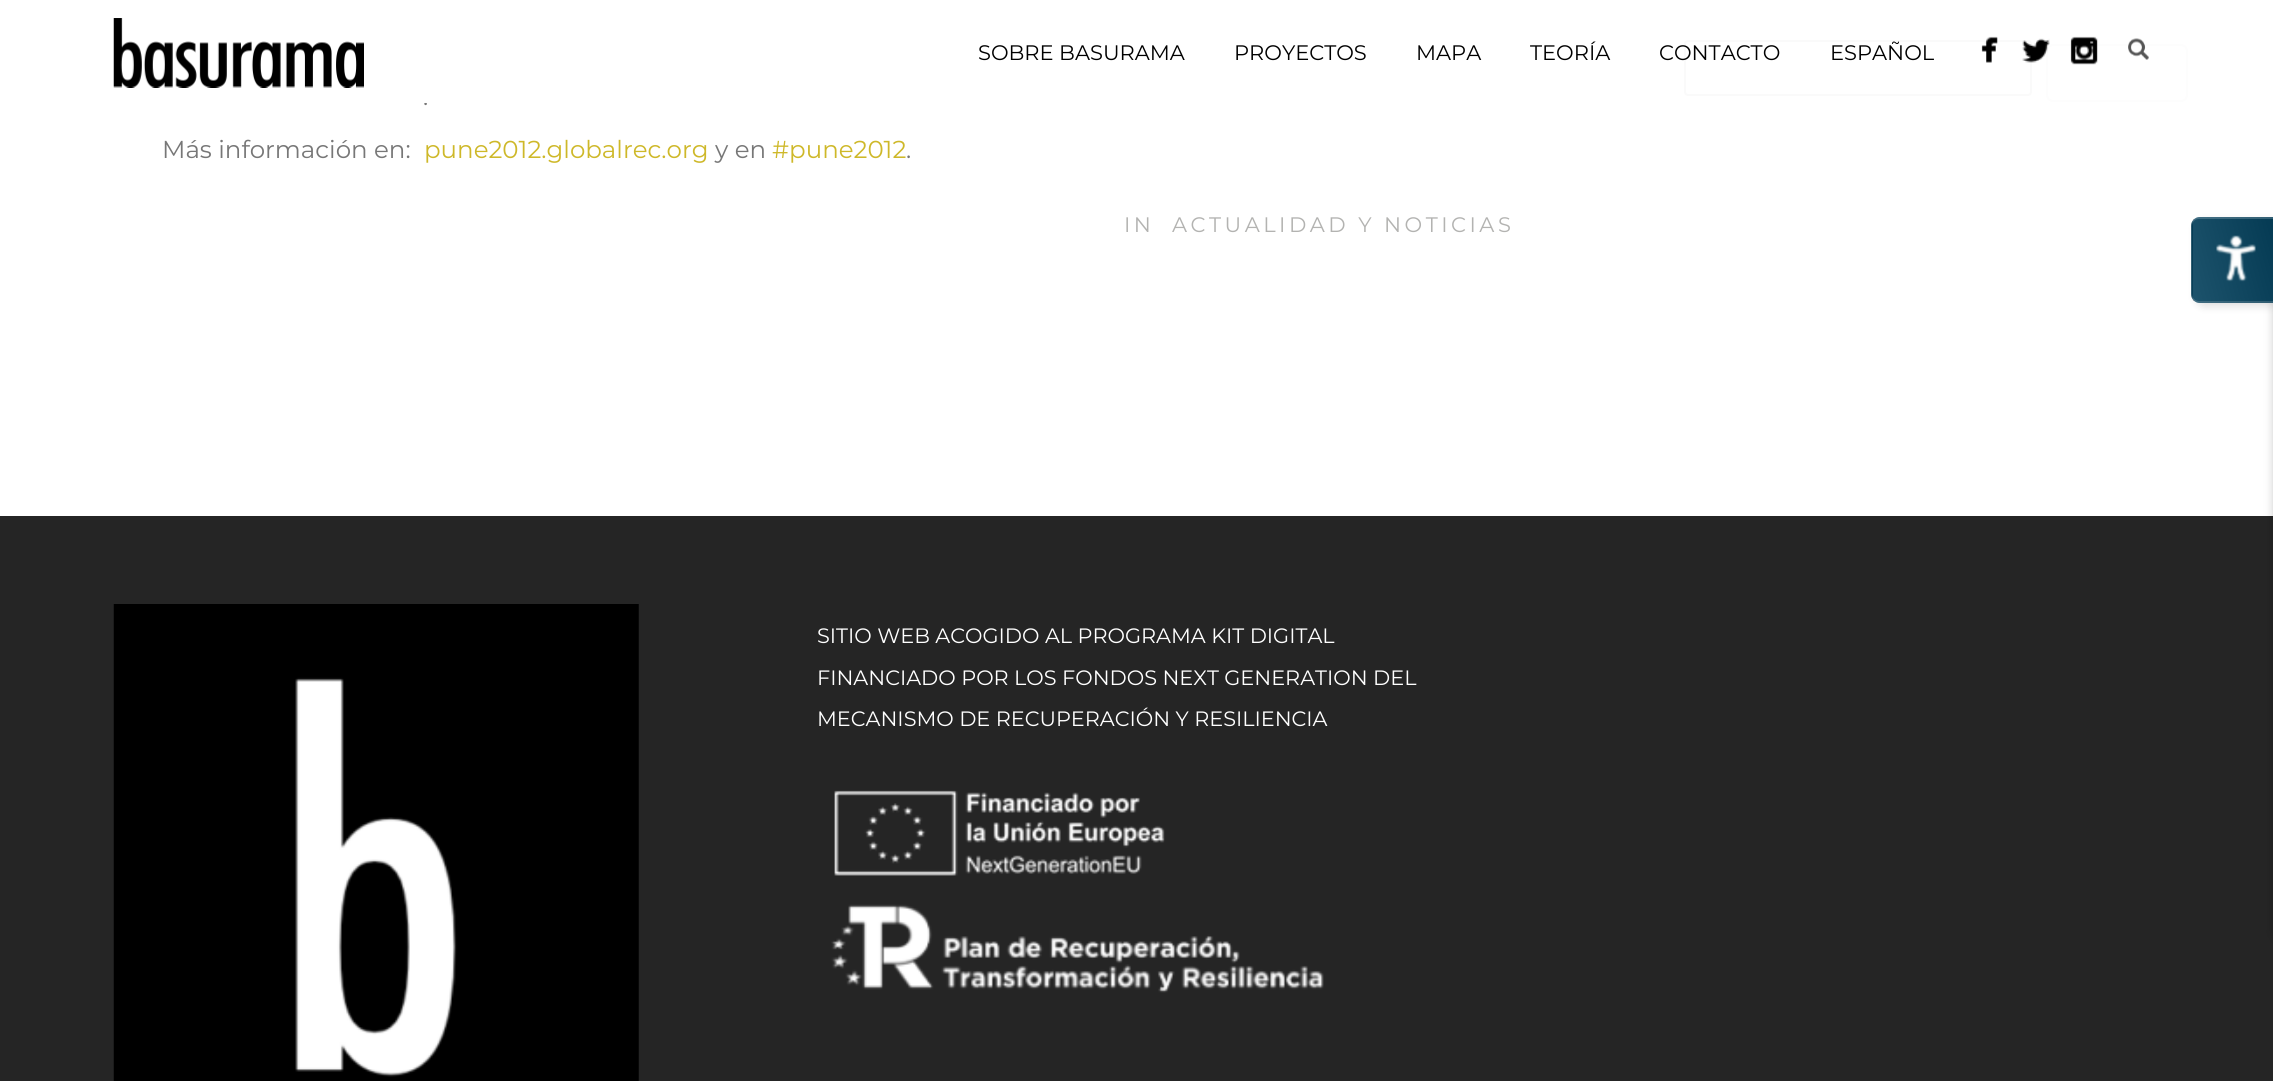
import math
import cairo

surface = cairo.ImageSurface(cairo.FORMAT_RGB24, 2273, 1081)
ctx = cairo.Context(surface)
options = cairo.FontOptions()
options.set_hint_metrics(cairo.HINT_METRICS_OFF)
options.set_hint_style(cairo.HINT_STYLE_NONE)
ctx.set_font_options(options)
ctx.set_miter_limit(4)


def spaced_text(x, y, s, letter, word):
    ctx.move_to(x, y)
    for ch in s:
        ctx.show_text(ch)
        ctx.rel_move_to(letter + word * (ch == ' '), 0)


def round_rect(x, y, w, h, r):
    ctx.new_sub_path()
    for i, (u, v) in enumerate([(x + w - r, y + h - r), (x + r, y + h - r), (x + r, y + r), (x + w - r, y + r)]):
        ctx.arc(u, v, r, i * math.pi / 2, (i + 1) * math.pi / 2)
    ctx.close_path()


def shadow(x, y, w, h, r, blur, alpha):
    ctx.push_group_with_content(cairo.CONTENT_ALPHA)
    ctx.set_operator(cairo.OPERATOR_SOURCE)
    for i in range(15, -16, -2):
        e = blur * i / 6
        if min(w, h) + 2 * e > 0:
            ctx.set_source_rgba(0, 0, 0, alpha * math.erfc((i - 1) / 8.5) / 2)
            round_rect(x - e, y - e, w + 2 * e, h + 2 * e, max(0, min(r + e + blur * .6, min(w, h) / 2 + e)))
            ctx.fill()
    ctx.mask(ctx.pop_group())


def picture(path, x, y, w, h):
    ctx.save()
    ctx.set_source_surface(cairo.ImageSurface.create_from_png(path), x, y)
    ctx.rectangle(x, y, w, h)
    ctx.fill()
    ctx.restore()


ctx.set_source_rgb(1, 1, 1)
ctx.paint()
ctx.set_source_rgb(0.988, 0.988, 0.988)
round_rect(1685, 41, 346, 54, 3)
ctx.fill_preserve()
ctx.set_source_rgb(0.58, 0.58, 0.58)
ctx.stroke()
ctx.set_source_rgb(0.969, 0.969, 0.969)
round_rect(2047, 45, 140, 56, 6)
ctx.fill_preserve()
ctx.set_source_rgb(0.8, 0.8, 0.8)
ctx.stroke()
ctx.select_font_face("Montserrat")
ctx.set_font_size(24.5)
ctx.set_source_rgb(0.467, 0.467, 0.467)
ctx.move_to(423, 105)
ctx.show_text(".")
ctx.set_source_rgba(1, 1, 1, 0.95)
ctx.rectangle(424, 40, 1764, 63)
ctx.fill()
picture("img1.png", 113, 18, 251, 70)
ctx.set_font_size(21)
ctx.set_source_rgb(0, 0, 0)
ctx.move_to(978, 60)
ctx.show_text("SOBRE BASURAMA")
ctx.move_to(1234, 60)
ctx.show_text("PROYECTOS")
ctx.move_to(1416, 60)
ctx.show_text("MAPA")
ctx.move_to(1530, 60)
ctx.show_text("TEORÍA")
ctx.move_to(1659, 60)
ctx.show_text("CONTACTO")
ctx.move_to(1830, 60)
ctx.show_text("ESPAÑOL")
picture("img2.png", 1981, 36, 17, 27)
picture("img3.png", 2022, 38, 28, 25)
picture("img4.png", 2070, 36, 28, 29)
picture("img5.png", 2128, 38, 21, 22)
ctx.set_font_size(24.5)
ctx.set_source_rgb(0.467, 0.467, 0.467)
ctx.move_to(162, 158)
ctx.show_text("Más información en:")
ctx.set_source_rgb(0.808, 0.722, 0.161)
ctx.move_to(424, 158)
ctx.show_text("pune2012.globalrec.org")
ctx.set_source_rgb(0.467, 0.467, 0.467)
ctx.move_to(715, 158)
ctx.show_text("y en")
ctx.set_source_rgb(0.808, 0.722, 0.161)
ctx.move_to(772, 158)
ctx.show_text("#pune2012")
ctx.set_source_rgb(0.467, 0.467, 0.467)
ctx.move_to(906, 158)
ctx.show_text(".")
ctx.set_font_size(21)
ctx.set_source_rgb(0.702, 0.702, 0.694)
spaced_text(1124, 232, "IN", 3.5, 0)
spaced_text(1172, 232, "ACTUALIDAD Y NOTICIAS", 3.5, 0)
ctx.set_source_rgb(0.145, 0.145, 0.145)
ctx.rectangle(0, 516, 2273, 565)
ctx.fill()
picture("img6.png", 113, 604, 526, 477)
ctx.set_font_size(20.8)
ctx.set_source_rgb(1, 1, 1)
ctx.move_to(817, 643)
ctx.show_text("SITIO WEB ACOGIDO AL PROGRAMA KIT DIGITAL")
ctx.move_to(817, 685)
ctx.show_text("FINANCIADO POR LOS FONDOS NEXT GENERATION DEL")
ctx.move_to(817, 726)
ctx.show_text("MECANISMO DE RECUPERACIÓN Y RESILIENCIA")
picture("img7.png", 834, 790, 331, 86)
picture("img8.png", 831, 904, 493, 89)
ctx.set_source_rgb(0, 0, 0)
shadow(2196, 221, 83, 85, 9, 4.5, 0.14)
ctx.set_source_rgb(0, 0.004, 0.004)
shadow(2273, 226, 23, 716, 9, 4.5, 0.2)
ctx.set_source_rgb(0.035, 0.353, 0.506)
ctx.new_path()
ctx.move_to(2200, 217)
ctx.line_to(2273, 217)
ctx.line_to(2273, 303)
ctx.line_to(2200, 303)
ctx.curve_to(2195, 303, 2191, 299, 2191, 294)
ctx.line_to(2191, 226)
ctx.curve_to(2191, 221, 2195, 217, 2200, 217)
ctx.close_path()
ctx.fill()
ctx.save()
ctx.new_path()
ctx.move_to(2200, 217)
ctx.line_to(2273, 217)
ctx.line_to(2273, 303)
ctx.line_to(2200, 303)
ctx.curve_to(2195, 303, 2191, 299, 2191, 294)
ctx.line_to(2191, 226)
ctx.curve_to(2191, 221, 2195, 217, 2200, 217)
ctx.close_path()
ctx.clip()
gradient = cairo.LinearGradient(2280, 165, 2185, 190)
gradient.add_color_stop_rgba(0.01, 0, 0, 0, 0.35)
gradient.add_color_stop_rgba(0.98, 0.263, 0.263, 0.263, 0.35)
ctx.set_source(gradient)
ctx.rectangle(2193, 217, 80, 2)
ctx.fill()
gradient = cairo.LinearGradient(2200, 247, 2104, 273)
gradient.add_color_stop_rgba(0.01, 0, 0, 0, 0.35)
gradient.add_color_stop_rgba(0.98, 0.263, 0.263, 0.263, 0.35)
ctx.set_source(gradient)
ctx.rectangle(2191, 219, 2, 82)
ctx.fill()
ctx.restore()
gradient = cairo.LinearGradient(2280, 247, 2185, 273)
gradient.add_color_stop_rgba(0.01, 0, 0, 0, 0.35)
gradient.add_color_stop_rgba(0.98, 0.263, 0.263, 0.263, 0.35)
ctx.set_source(gradient)
ctx.rectangle(2193, 219, 80, 82)
ctx.fill()
ctx.save()
ctx.new_path()
ctx.move_to(2200, 217)
ctx.line_to(2273, 217)
ctx.line_to(2273, 303)
ctx.line_to(2200, 303)
ctx.curve_to(2195, 303, 2191, 299, 2191, 294)
ctx.line_to(2191, 226)
ctx.curve_to(2191, 221, 2195, 217, 2200, 217)
ctx.close_path()
ctx.clip()
gradient = cairo.LinearGradient(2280, 329, 2185, 355)
gradient.add_color_stop_rgba(0.01, 0, 0, 0, 0.35)
gradient.add_color_stop_rgba(0.98, 0.263, 0.263, 0.263, 0.35)
ctx.set_source(gradient)
ctx.rectangle(2193, 301, 80, 2)
ctx.fill()
ctx.restore()
ctx.set_source_rgba(1, 1, 1, 0.17)
ctx.set_fill_rule(cairo.FILL_RULE_EVEN_ODD)
ctx.new_path()
ctx.move_to(2199, 217)
ctx.line_to(2273, 217)
ctx.line_to(2273, 303)
ctx.line_to(2199, 303)
ctx.curve_to(2194, 303, 2190, 299, 2190, 294)
ctx.line_to(2190, 226)
ctx.curve_to(2190, 221, 2194, 217, 2199, 217)
ctx.close_path()
ctx.move_to(2199, 219)
ctx.line_to(2273, 219)
ctx.line_to(2273, 301)
ctx.line_to(2199, 301)
ctx.curve_to(2195, 301, 2192, 298, 2192, 294)
ctx.line_to(2192, 226)
ctx.curve_to(2192, 222, 2195, 219, 2199, 219)
ctx.close_path()
ctx.fill()
picture("img9.png", 2216, 235, 40, 47)
surface.write_to_png("page.png")
